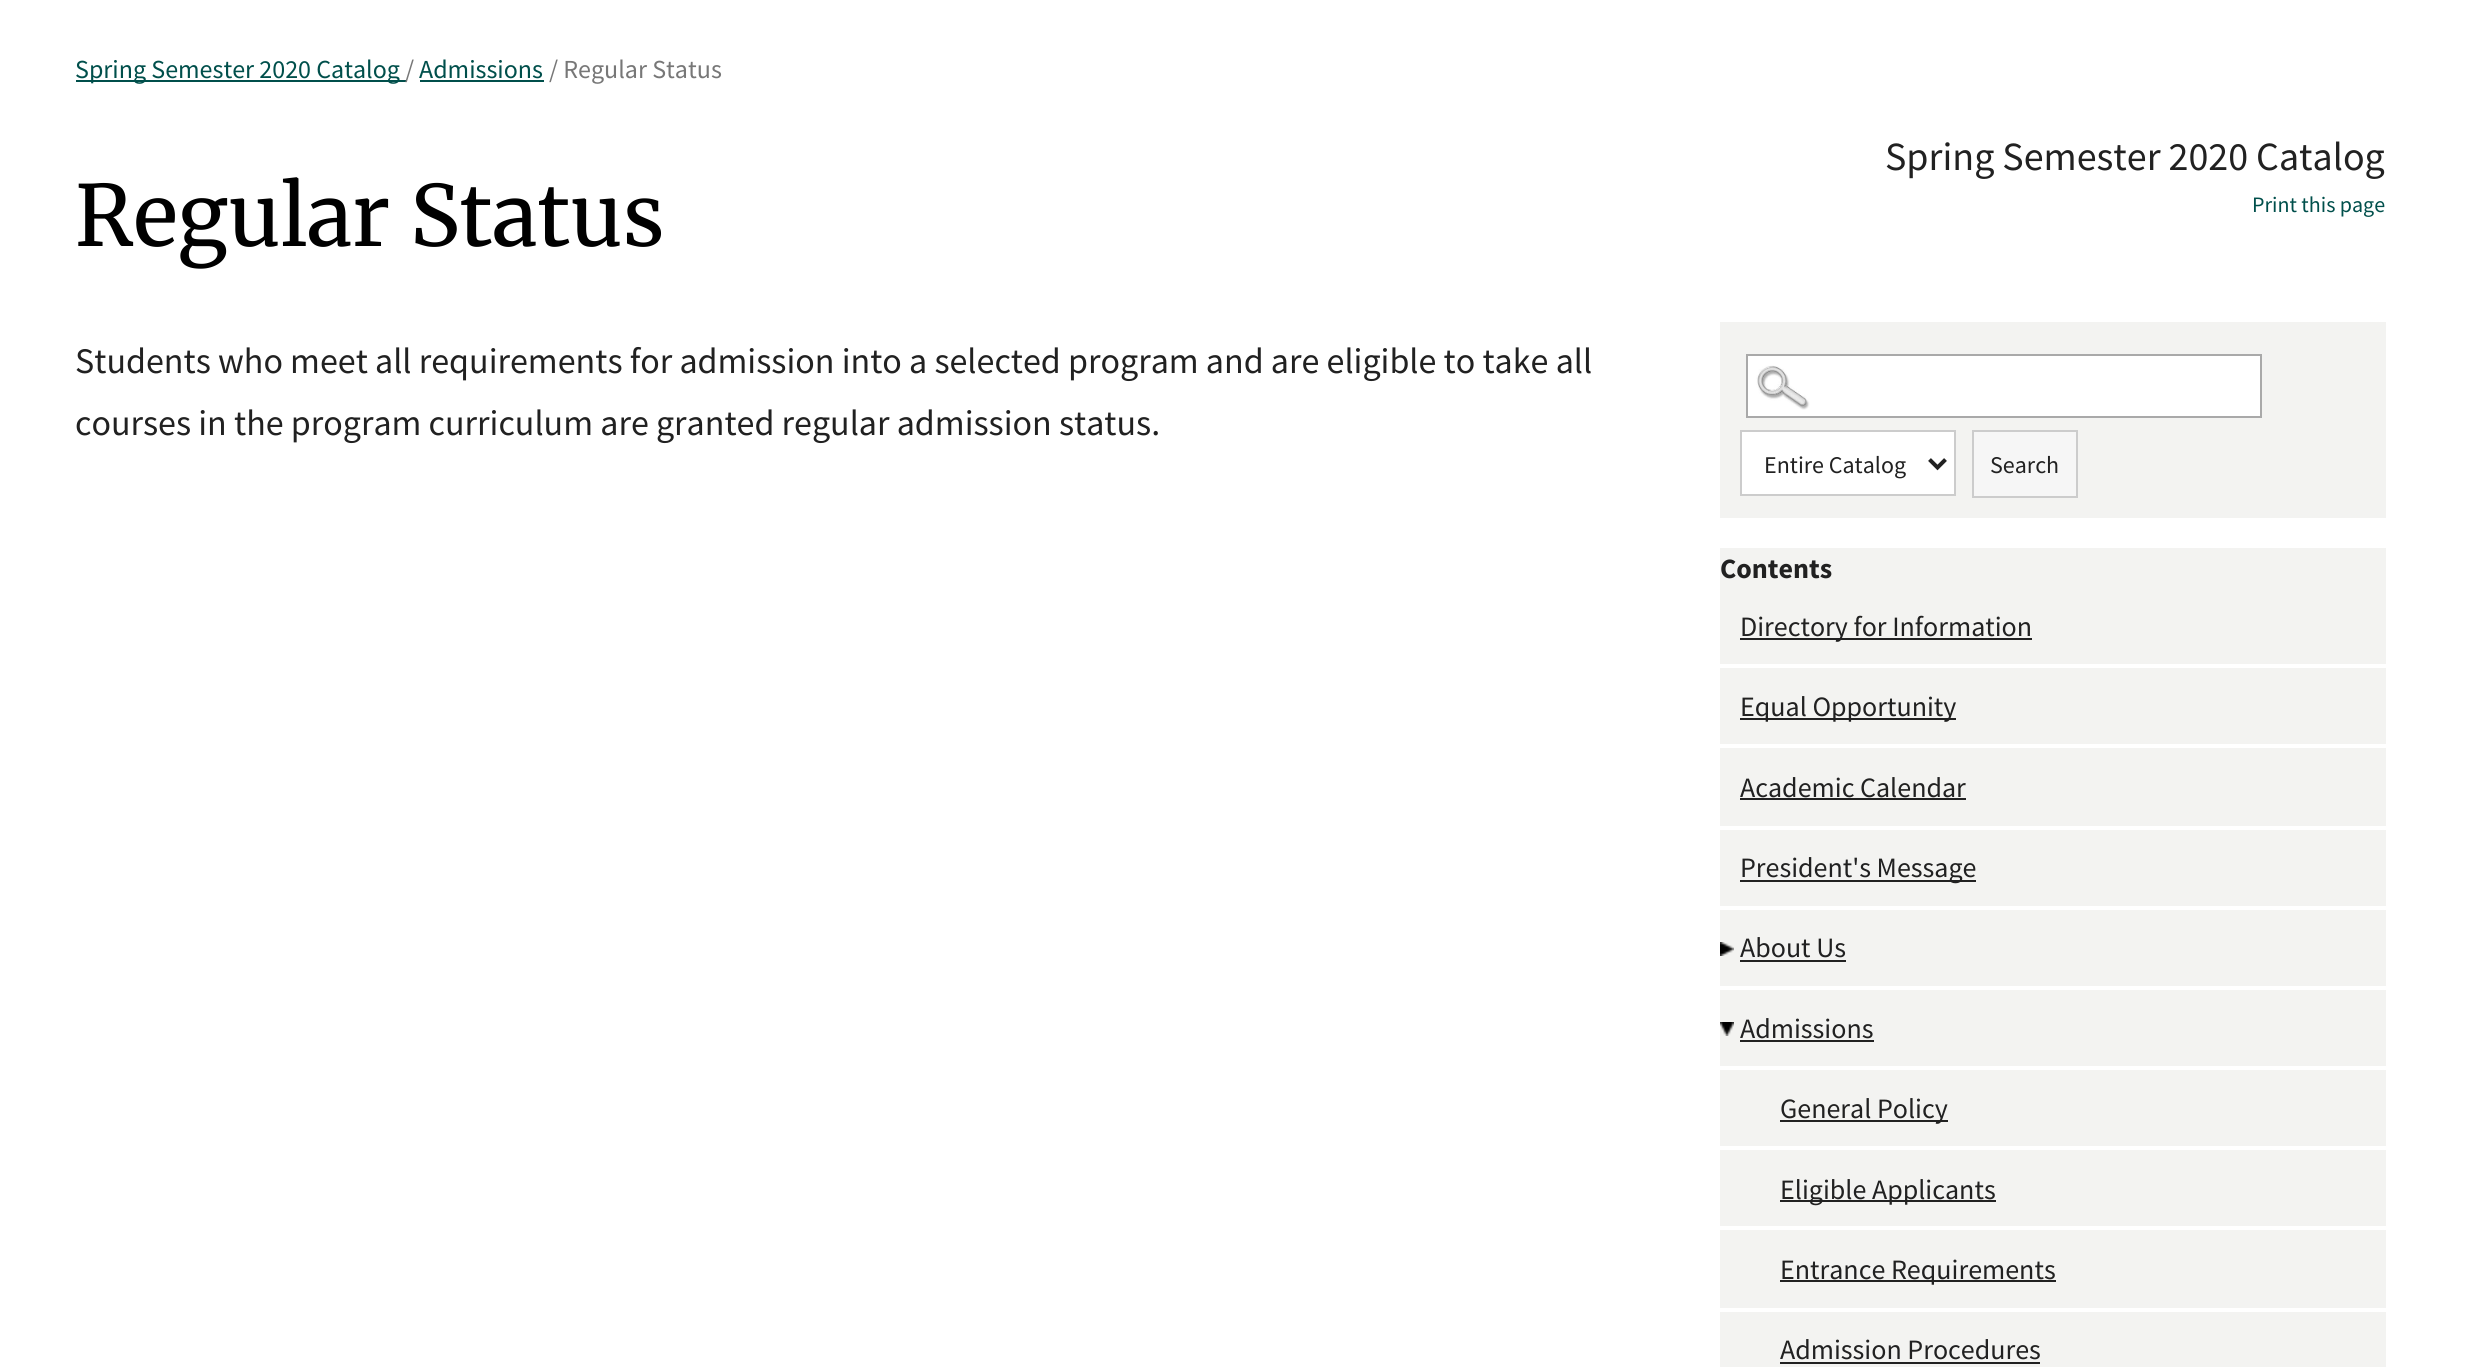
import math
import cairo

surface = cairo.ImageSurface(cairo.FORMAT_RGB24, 2490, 1367)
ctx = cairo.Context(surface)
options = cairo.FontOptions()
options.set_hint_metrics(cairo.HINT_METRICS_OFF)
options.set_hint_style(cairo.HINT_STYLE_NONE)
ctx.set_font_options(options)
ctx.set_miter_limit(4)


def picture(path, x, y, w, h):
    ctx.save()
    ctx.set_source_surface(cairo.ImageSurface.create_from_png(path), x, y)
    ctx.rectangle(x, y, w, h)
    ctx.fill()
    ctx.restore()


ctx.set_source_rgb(1, 1, 1)
ctx.paint()
ctx.set_source_rgb(0, 0.31, 0.294)
ctx.rectangle(76, 80, 330, 2)
ctx.fill()
ctx.select_font_face("Source Sans Pro")
ctx.set_font_size(26)
ctx.move_to(75, 78)
ctx.show_text("Spring Semester 2020 Catalog")
ctx.set_source_rgb(0.467, 0.467, 0.467)
ctx.move_to(405, 78)
ctx.show_text("/")
ctx.set_source_rgb(0, 0.31, 0.294)
ctx.move_to(419, 78)
ctx.show_text("Admissions")
ctx.rectangle(420, 80, 124, 2)
ctx.fill()
ctx.set_source_rgb(0.467, 0.467, 0.467)
ctx.move_to(549, 78)
ctx.show_text("/ Regular Status")
ctx.select_font_face("Merriweather")
ctx.set_font_size(84)
ctx.set_source_rgb(0, 0, 0)
ctx.move_to(75, 246)
ctx.show_text("Regular Status")
ctx.select_font_face("Source Sans Pro")
ctx.set_font_size(36)
ctx.set_source_rgb(0.129, 0.129, 0.129)
ctx.move_to(75, 373)
ctx.show_text("Students who meet all requirements for admission into a selected program and are eligible to take all")
ctx.move_to(75, 435)
ctx.show_text("courses in the program curriculum are granted regular admission status.")
ctx.set_font_size(40)
ctx.move_to(1885, 170)
ctx.show_text("Spring Semester 2020 Catalog")
ctx.set_font_size(22)
ctx.set_source_rgb(0, 0.31, 0.294)
ctx.move_to(2252, 212)
ctx.show_text("Print this page")
ctx.set_source_rgb(0.953, 0.953, 0.945)
ctx.rectangle(1720, 322, 666, 196)
ctx.fill()
ctx.set_source_rgb(1, 1, 1)
ctx.rectangle(1748, 356, 512, 60)
ctx.fill()
picture("img1.png", 1756, 365, 54, 45)
ctx.rectangle(1747, 355, 514, 62)
ctx.set_source_rgb(0.663, 0.663, 0.663)
ctx.stroke()
ctx.set_source_rgb(1, 1, 1)
ctx.rectangle(1741, 431, 214, 64)
ctx.fill_preserve()
ctx.set_source_rgb(0.8, 0.8, 0.8)
ctx.stroke()
ctx.new_path()
ctx.move_to(1929.5, 459.5)
ctx.line_to(1937.5, 467.5)
ctx.line_to(1945.5, 459.5)
ctx.set_source_rgb(0.129, 0.129, 0.129)
ctx.set_line_width(4)
ctx.stroke()
ctx.set_font_size(24)
ctx.move_to(1764, 473)
ctx.show_text("Entire Catalog")
ctx.set_source_rgb(0.961, 0.961, 0.961)
ctx.rectangle(1973, 431, 104, 66)
ctx.fill_preserve()
ctx.set_source_rgb(0.8, 0.8, 0.8)
ctx.set_line_width(2)
ctx.stroke()
ctx.set_source_rgb(0.129, 0.129, 0.129)
ctx.move_to(1990, 473)
ctx.show_text("Search")
ctx.set_source_rgb(0.953, 0.953, 0.945)
ctx.rectangle(1720, 548, 666, 116)
ctx.fill()
ctx.select_font_face("Source Sans Pro", cairo.FONT_SLANT_NORMAL, cairo.FONT_WEIGHT_BOLD)
ctx.set_font_size(28)
ctx.set_source_rgb(0.129, 0.129, 0.129)
ctx.move_to(1720, 578)
ctx.show_text("Contents")
ctx.rectangle(1740, 638, 292, 2)
ctx.fill()
ctx.select_font_face("Source Sans Pro")
ctx.move_to(1740, 636)
ctx.show_text("Directory for Information")
ctx.set_source_rgb(0.953, 0.953, 0.945)
ctx.rectangle(1720, 668, 666, 76)
ctx.fill()
ctx.set_source_rgb(0.129, 0.129, 0.129)
ctx.rectangle(1740, 718, 216, 2)
ctx.fill()
ctx.move_to(1740, 716)
ctx.show_text("Equal Opportunity")
ctx.set_source_rgb(0.953, 0.953, 0.945)
ctx.rectangle(1720, 748, 666, 78)
ctx.fill()
ctx.set_source_rgb(0.129, 0.129, 0.129)
ctx.move_to(1740, 797)
ctx.show_text("Academic Calendar")
ctx.rectangle(1740, 798, 226, 2)
ctx.fill()
ctx.set_source_rgb(0.953, 0.953, 0.945)
ctx.rectangle(1720, 830, 666, 76)
ctx.fill()
ctx.set_source_rgb(0.129, 0.129, 0.129)
ctx.rectangle(1740, 880, 236, 2)
ctx.fill()
ctx.move_to(1740, 877)
ctx.show_text("President's Message")
ctx.set_source_rgb(0.953, 0.953, 0.945)
ctx.rectangle(1720, 910, 666, 76)
ctx.fill()
picture("img2.png", 1720, 942, 14, 14)
ctx.set_source_rgb(0.129, 0.129, 0.129)
ctx.move_to(1740, 957)
ctx.show_text("About Us")
ctx.rectangle(1740, 960, 106, 2)
ctx.fill()
ctx.set_source_rgb(0.953, 0.953, 0.945)
ctx.rectangle(1720, 990, 666, 76)
ctx.fill()
picture("img3.png", 1720, 1022, 14, 14)
ctx.set_source_rgb(0.129, 0.129, 0.129)
ctx.move_to(1740, 1038)
ctx.show_text("Admissions")
ctx.rectangle(1740, 1040, 134, 2)
ctx.fill()
ctx.set_source_rgb(0.953, 0.953, 0.945)
ctx.rectangle(1720, 1070, 666, 76)
ctx.fill()
ctx.set_source_rgb(0.129, 0.129, 0.129)
ctx.rectangle(1780, 1120, 168, 2)
ctx.fill()
ctx.move_to(1780, 1118)
ctx.show_text("General Policy")
ctx.set_source_rgb(0.953, 0.953, 0.945)
ctx.rectangle(1720, 1150, 666, 76)
ctx.fill()
ctx.set_source_rgb(0.129, 0.129, 0.129)
ctx.rectangle(1780, 1200, 216, 2)
ctx.fill()
ctx.move_to(1780, 1199)
ctx.show_text("Eligible Applicants")
ctx.set_source_rgb(0.953, 0.953, 0.945)
ctx.rectangle(1720, 1230, 666, 78)
ctx.fill()
ctx.set_source_rgb(0.129, 0.129, 0.129)
ctx.rectangle(1780, 1280, 276, 2)
ctx.fill()
ctx.move_to(1780, 1279)
ctx.show_text("Entrance Requirements")
ctx.set_source_rgb(0.953, 0.953, 0.945)
ctx.rectangle(1720, 1312, 666, 55)
ctx.fill()
ctx.set_source_rgb(0.129, 0.129, 0.129)
ctx.move_to(1780, 1359)
ctx.show_text("Admission Procedures")
ctx.rectangle(1780, 1362, 260, 2)
ctx.fill()
surface.write_to_png("page.png")
